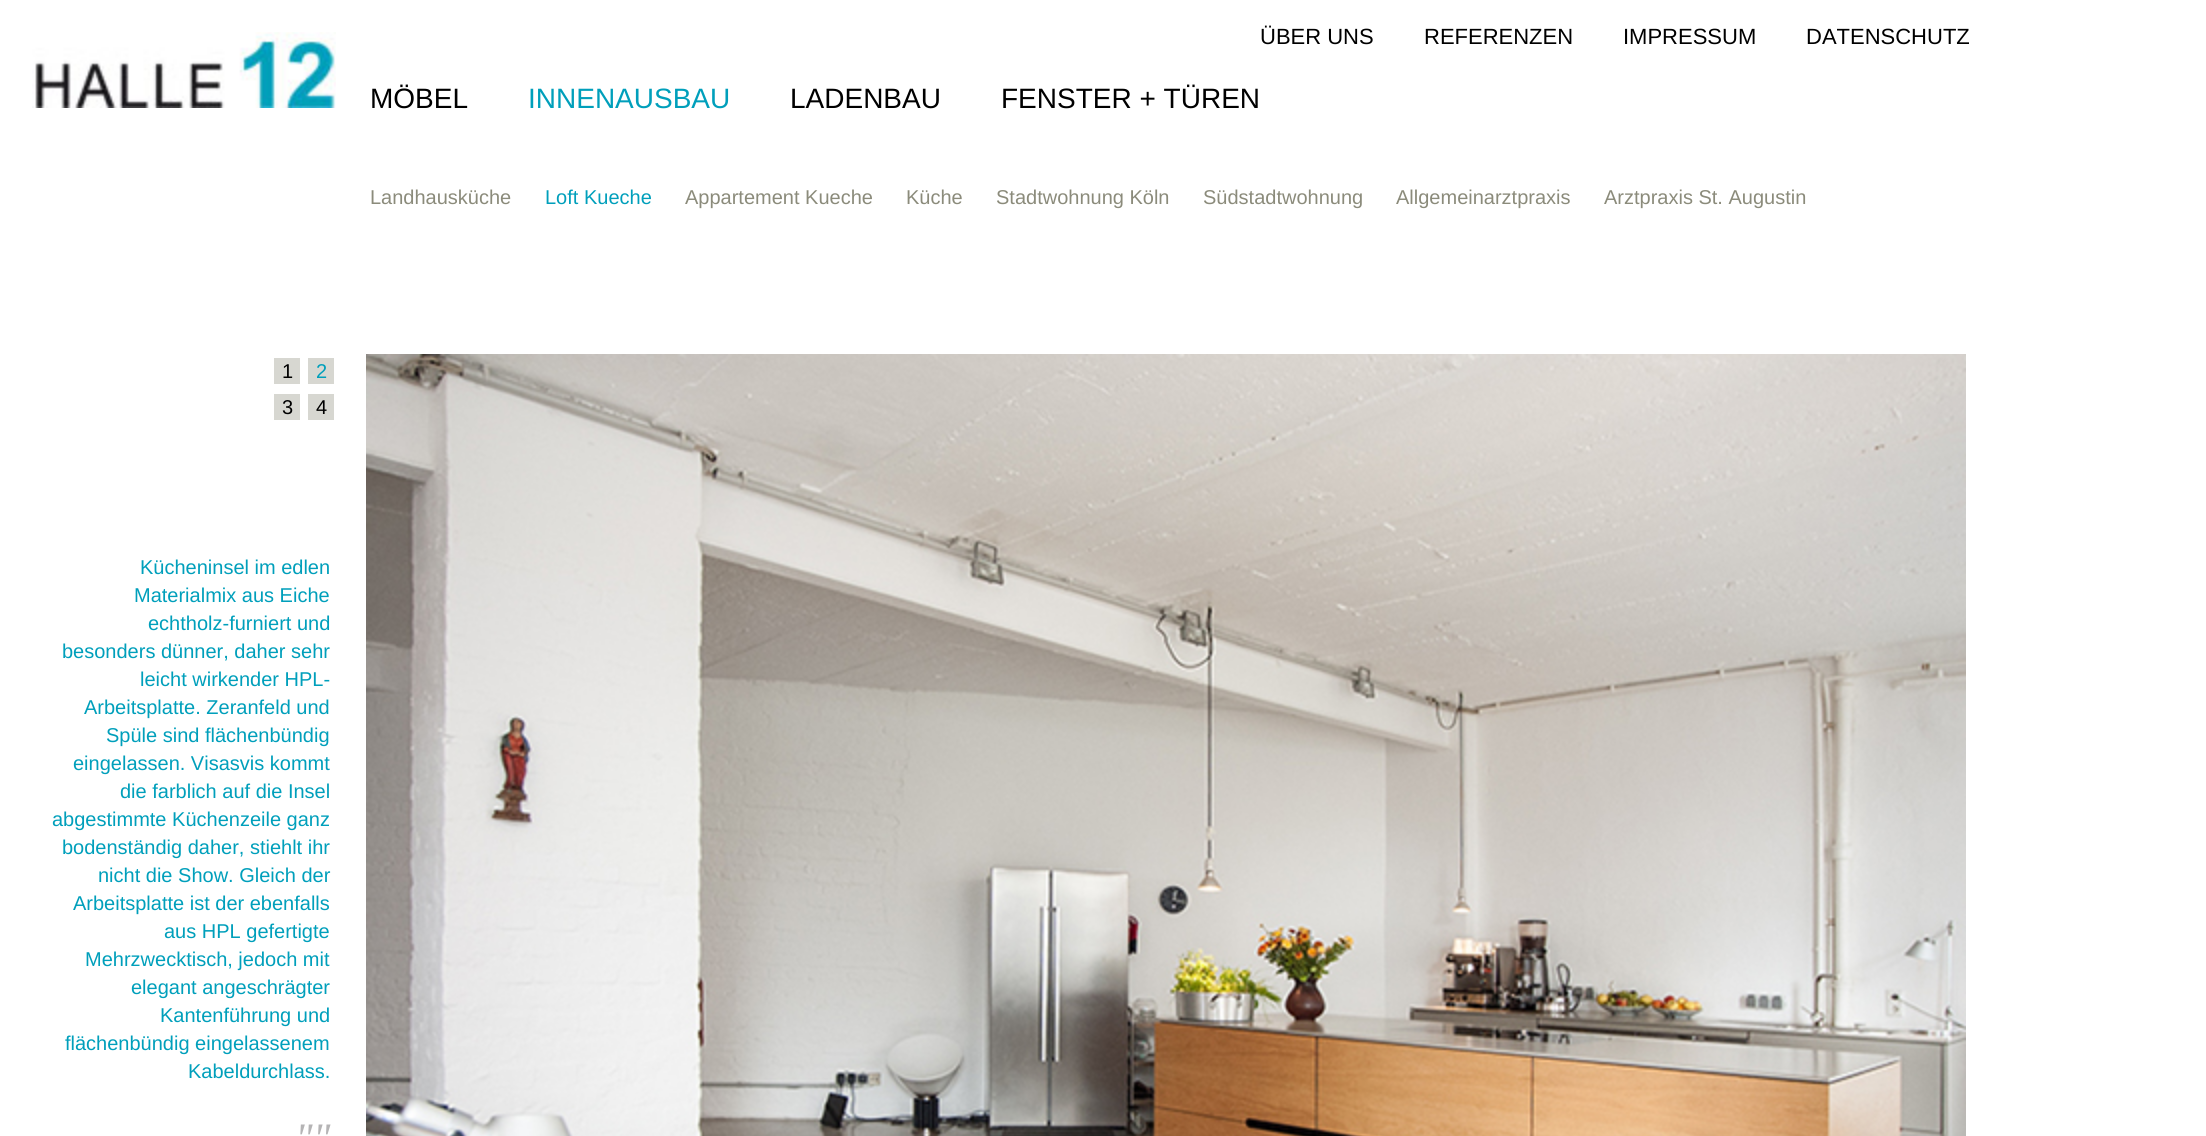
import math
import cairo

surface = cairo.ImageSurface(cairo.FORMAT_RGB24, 2206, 1136)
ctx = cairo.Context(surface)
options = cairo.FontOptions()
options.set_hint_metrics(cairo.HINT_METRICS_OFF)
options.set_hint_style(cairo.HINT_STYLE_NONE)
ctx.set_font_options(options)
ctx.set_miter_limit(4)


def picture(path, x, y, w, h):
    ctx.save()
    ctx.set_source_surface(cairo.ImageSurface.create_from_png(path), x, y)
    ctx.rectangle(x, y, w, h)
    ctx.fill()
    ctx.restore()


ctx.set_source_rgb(1, 1, 1)
ctx.paint()
picture("img1.png", 32, 32, 304, 76)
ctx.select_font_face("Liberation Sans")
ctx.set_font_size(28)
ctx.set_source_rgb(0, 0, 0)
ctx.move_to(370, 108)
ctx.show_text("MÖBEL")
ctx.set_source_rgb(0, 0.624, 0.733)
ctx.move_to(528, 108)
ctx.show_text("INNENAUSBAU")
ctx.set_source_rgb(0, 0, 0)
ctx.move_to(790, 108)
ctx.show_text("LADENBAU")
ctx.move_to(1001, 108)
ctx.show_text("FENSTER + TÜREN")
ctx.set_font_size(22)
ctx.move_to(1260, 44)
ctx.show_text("ÜBER UNS")
ctx.move_to(1424, 44)
ctx.show_text("REFERENZEN")
ctx.move_to(1623, 44)
ctx.show_text("IMPRESSUM")
ctx.move_to(1806, 44)
ctx.show_text("DATENSCHUTZ")
ctx.set_font_size(20)
ctx.set_source_rgb(0.545, 0.545, 0.482)
ctx.move_to(370, 204)
ctx.show_text("Landhausküche")
ctx.set_source_rgb(0, 0.624, 0.733)
ctx.move_to(545, 204)
ctx.show_text("Loft Kueche")
ctx.set_source_rgb(0.545, 0.545, 0.482)
ctx.move_to(685, 204)
ctx.show_text("Appartement Kueche")
ctx.move_to(906, 204)
ctx.show_text("Küche")
ctx.move_to(996, 204)
ctx.show_text("Stadtwohnung Köln")
ctx.move_to(1203, 204)
ctx.show_text("Südstadtwohnung")
ctx.move_to(1396, 204)
ctx.show_text("Allgemeinarztpraxis")
ctx.move_to(1604, 204)
ctx.show_text("Arztpraxis St. Augustin")
ctx.set_source_rgb(0.843, 0.843, 0.82)
ctx.rectangle(274, 358, 26, 26)
ctx.fill()
ctx.set_source_rgb(0, 0, 0)
ctx.move_to(282, 378)
ctx.show_text("1")
ctx.set_source_rgb(0.843, 0.843, 0.82)
ctx.rectangle(308, 358, 26, 26)
ctx.fill()
ctx.set_source_rgb(0, 0.624, 0.733)
ctx.move_to(316, 378)
ctx.show_text("2")
ctx.set_source_rgb(0.843, 0.843, 0.82)
ctx.rectangle(274, 394, 26, 26)
ctx.fill()
ctx.set_source_rgb(0, 0, 0)
ctx.move_to(282, 414)
ctx.show_text("3")
ctx.set_source_rgb(0.843, 0.843, 0.82)
ctx.rectangle(308, 394, 26, 26)
ctx.fill()
ctx.set_source_rgb(0, 0, 0)
ctx.move_to(316, 414)
ctx.show_text("4")
picture("img2.png", 366, 354, 1600, 782)
ctx.set_source_rgb(0, 0.624, 0.733)
ctx.move_to(140, 574)
ctx.show_text("Kücheninsel im edlen")
ctx.move_to(134, 602)
ctx.show_text("Materialmix aus Eiche")
ctx.move_to(148, 630)
ctx.show_text("echtholz-furniert und")
ctx.move_to(62, 658)
ctx.show_text("besonders dünner, daher sehr")
ctx.move_to(140, 686)
ctx.show_text("leicht wirkender HPL-")
ctx.move_to(84, 714)
ctx.show_text("Arbeitsplatte. Zeranfeld und")
ctx.move_to(106, 742)
ctx.show_text("Spüle sind flächenbündig")
ctx.move_to(73, 770)
ctx.show_text("eingelassen. Visasvis kommt")
ctx.move_to(120, 798)
ctx.show_text("die farblich auf die Insel")
ctx.move_to(52, 826)
ctx.show_text("abgestimmte Küchenzeile ganz")
ctx.move_to(62, 854)
ctx.show_text("bodenständig daher, stiehlt ihr")
ctx.move_to(98, 882)
ctx.show_text("nicht die Show. Gleich der")
ctx.move_to(73, 910)
ctx.show_text("Arbeitsplatte ist der ebenfalls")
ctx.move_to(164, 938)
ctx.show_text("aus HPL gefertigte")
ctx.move_to(85, 966)
ctx.show_text("Mehrzwecktisch, jedoch mit")
ctx.move_to(131, 994)
ctx.show_text("elegant angeschrägter")
ctx.move_to(160, 1022)
ctx.show_text("Kantenführung und")
ctx.move_to(65, 1050)
ctx.show_text("flächenbündig eingelassenem")
ctx.move_to(188, 1078)
ctx.show_text("Kabeldurchlass.")
ctx.select_font_face("Liberation Serif", cairo.FONT_SLANT_ITALIC)
ctx.set_font_size(42)
ctx.set_source_rgb(0.71, 0.706, 0.71)
ctx.move_to(295, 1152)
ctx.show_text("\"\"")
surface.write_to_png("page.png")
